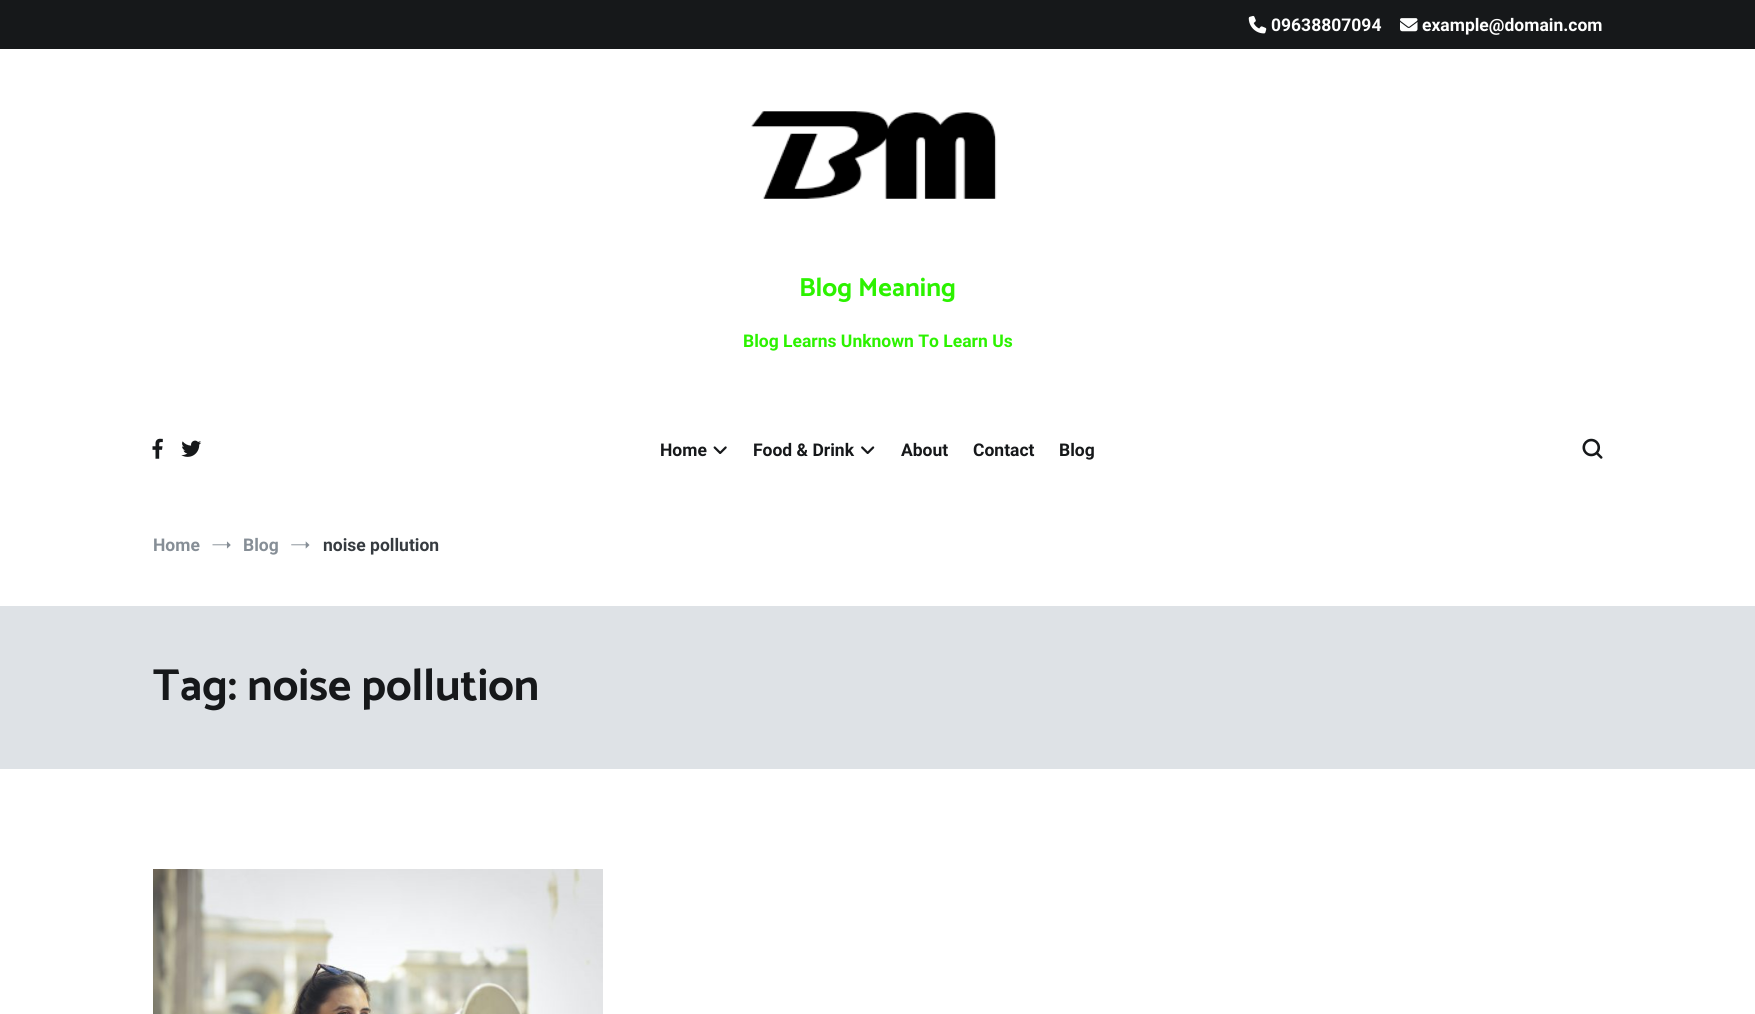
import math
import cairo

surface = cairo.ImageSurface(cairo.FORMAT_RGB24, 1755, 1014)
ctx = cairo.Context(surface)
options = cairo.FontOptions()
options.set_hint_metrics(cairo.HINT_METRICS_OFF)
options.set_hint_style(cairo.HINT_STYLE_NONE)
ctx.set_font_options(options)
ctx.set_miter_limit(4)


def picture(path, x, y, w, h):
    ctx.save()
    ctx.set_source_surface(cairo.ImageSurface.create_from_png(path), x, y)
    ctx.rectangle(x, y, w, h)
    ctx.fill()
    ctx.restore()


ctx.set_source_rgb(1, 1, 1)
ctx.paint()
ctx.set_source_rgb(0.086, 0.094, 0.102)
ctx.rectangle(0, 0, 1755, 49)
ctx.fill()
picture("img1.png", 1248, 15, 19, 19)
ctx.select_font_face("Roboto", cairo.FONT_SLANT_NORMAL, cairo.FONT_WEIGHT_BOLD)
ctx.set_font_size(17.5)
ctx.set_source_rgb(1, 1, 1)
ctx.move_to(1271, 31)
ctx.show_text("09638807094")
picture("img2.png", 1400, 18, 18, 14)
ctx.move_to(1422, 31)
ctx.show_text("example@domain.com")
picture("img3.png", 751, 111, 246, 88)
ctx.select_font_face("Catamaran", cairo.FONT_SLANT_NORMAL, cairo.FONT_WEIGHT_BOLD)
ctx.set_font_size(26.25)
ctx.set_source_rgb(0.173, 0.949, 0)
ctx.move_to(799, 296)
ctx.show_text("Blog Meaning")
ctx.select_font_face("Roboto", cairo.FONT_SLANT_NORMAL, cairo.FONT_WEIGHT_BOLD)
ctx.set_font_size(17.5)
ctx.move_to(743, 347)
ctx.show_text("Blog Learns Unknown To Learn Us")
picture("img4.png", 152, 438, 11, 21)
picture("img5.png", 181, 440, 21, 17)
ctx.set_source_rgb(0.086, 0.094, 0.102)
ctx.move_to(660, 456)
ctx.show_text("Home")
picture("img6.png", 713, 446, 14, 8)
ctx.move_to(753, 456)
ctx.show_text("Food & Drink")
picture("img7.png", 861, 446, 14, 8)
ctx.move_to(901, 456)
ctx.show_text("About")
ctx.move_to(973, 456)
ctx.show_text("Contact")
ctx.move_to(1059, 456)
ctx.show_text("Blog")
picture("img8.png", 1582, 438, 21, 21)
ctx.set_source_rgb(0.525, 0.557, 0.588)
ctx.move_to(153, 551)
ctx.show_text("Home")
picture("img9.png", 212, 541, 19, 8)
ctx.move_to(243, 551)
ctx.show_text("Blog")
picture("img10.png", 291, 541, 19, 8)
ctx.set_source_rgb(0.212, 0.231, 0.251)
ctx.move_to(323, 551)
ctx.show_text("noise pollution")
ctx.set_source_rgb(0.871, 0.886, 0.902)
ctx.rectangle(0, 606, 1755, 163)
ctx.fill()
ctx.select_font_face("Catamaran", cairo.FONT_SLANT_NORMAL, cairo.FONT_WEIGHT_BOLD)
ctx.set_font_size(45)
ctx.set_source_rgb(0.086, 0.094, 0.102)
ctx.move_to(153, 700)
ctx.show_text("Tag: noise pollution")
picture("img11.png", 153, 869, 450, 145)
surface.write_to_png("page.png")
